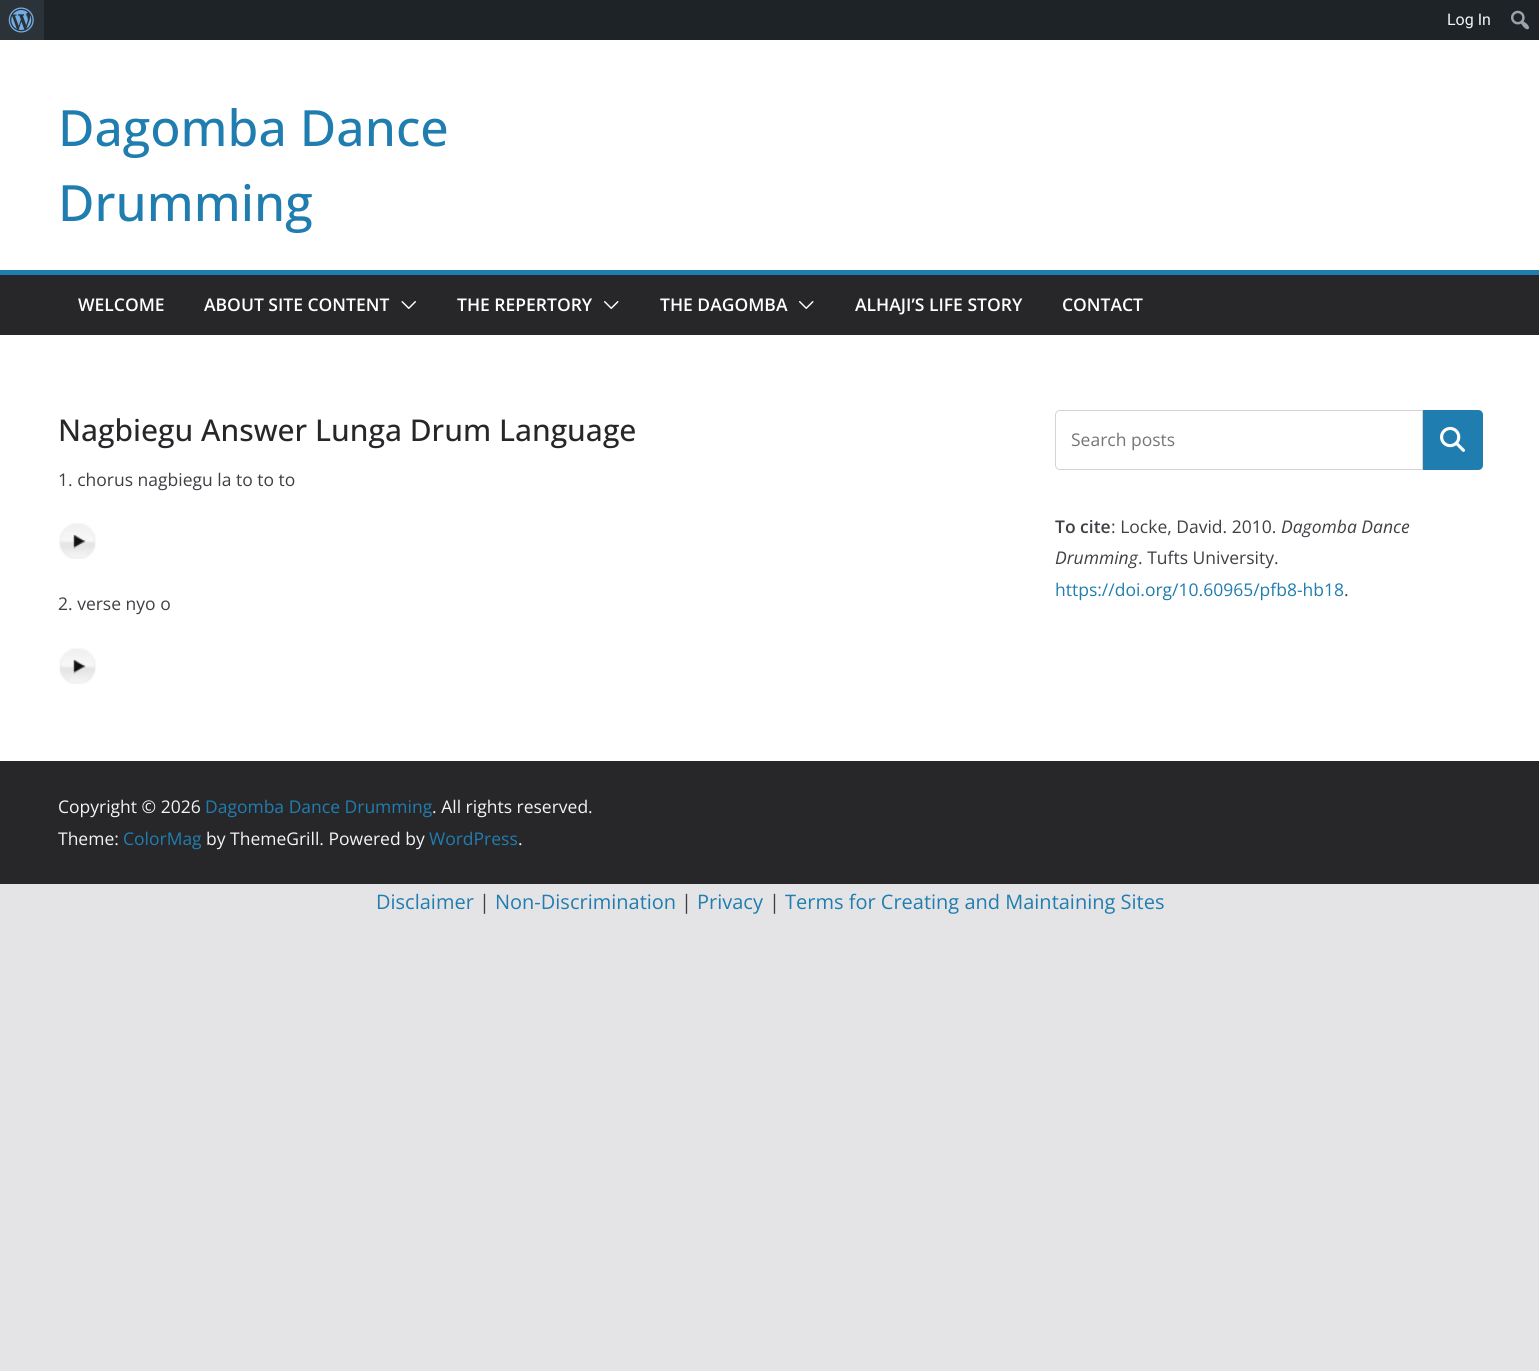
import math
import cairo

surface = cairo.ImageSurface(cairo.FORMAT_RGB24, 1539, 1371)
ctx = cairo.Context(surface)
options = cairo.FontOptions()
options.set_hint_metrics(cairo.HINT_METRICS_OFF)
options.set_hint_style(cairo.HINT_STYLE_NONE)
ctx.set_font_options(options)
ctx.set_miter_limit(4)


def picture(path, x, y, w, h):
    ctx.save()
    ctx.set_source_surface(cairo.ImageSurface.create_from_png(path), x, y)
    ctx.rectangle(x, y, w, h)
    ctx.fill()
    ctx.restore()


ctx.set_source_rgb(0.894, 0.894, 0.906)
ctx.paint()
ctx.set_source_rgb(0.114, 0.137, 0.153)
ctx.rectangle(44, 0, 1495, 40)
ctx.fill()
ctx.set_source_rgb(0.173, 0.2, 0.22)
ctx.rectangle(0, 0, 44, 40)
ctx.fill()
picture("img1.png", 8, 7, 26, 26)
ctx.select_font_face("Roboto")
ctx.set_font_size(16)
ctx.set_source_rgb(0.957, 0.957, 0.961)
ctx.move_to(1447, 25)
ctx.show_text("Log In")
picture("img2.png", 1511, 10, 18, 20)
ctx.set_source_rgb(1, 1, 1)
ctx.rectangle(0, 40, 1539, 230)
ctx.fill()
ctx.select_font_face("Open Sans Medium")
ctx.set_font_size(50)
ctx.set_source_rgb(0.125, 0.49, 0.686)
ctx.move_to(58, 146)
ctx.show_text("Dagomba Dance")
ctx.move_to(58, 221)
ctx.show_text("Drumming")
ctx.set_source_rgb(0.153, 0.153, 0.165)
ctx.rectangle(0, 275, 1539, 60)
ctx.fill()
ctx.set_source_rgb(0.125, 0.49, 0.686)
ctx.rectangle(0, 270, 1539, 5)
ctx.fill()
ctx.select_font_face("Open Sans SemiBold")
ctx.set_font_size(17.5)
ctx.set_source_rgb(1, 1, 1)
ctx.move_to(78, 311)
ctx.show_text("WELCOME")
ctx.move_to(204, 311)
ctx.show_text("ABOUT SITE CONTENT")
picture("img3.png", 401, 301, 15, 8)
ctx.move_to(457, 311)
ctx.show_text("THE REPERTORY")
picture("img4.png", 604, 301, 15, 8)
ctx.move_to(660, 311)
ctx.show_text("THE DAGOMBA")
picture("img4.png", 799, 301, 15, 8)
ctx.move_to(855, 311)
ctx.show_text("ALHAJI’S LIFE STORY")
ctx.move_to(1062, 311)
ctx.show_text("CONTACT")
ctx.rectangle(0, 335, 1539, 426)
ctx.fill()
ctx.select_font_face("Open Sans Medium")
ctx.set_font_size(30)
ctx.set_source_rgb(0.153, 0.153, 0.165)
ctx.move_to(58, 441)
ctx.show_text("Nagbiegu Answer Lunga Drum Language")
ctx.select_font_face("Open Sans")
ctx.set_font_size(17.5)
ctx.set_source_rgb(0.247, 0.247, 0.275)
ctx.move_to(58, 486)
ctx.show_text("1. chorus nagbiegu la to to to")
picture("img5.png", 59, 523, 37, 36)
ctx.move_to(58, 610)
ctx.show_text("2. verse nyo o")
picture("img5.png", 59, 648, 37, 36)
ctx.new_path()
ctx.move_to(1060, 410.5)
ctx.line_to(1422.5, 410.5)
ctx.line_to(1422.5, 469.5)
ctx.line_to(1060, 469.5)
ctx.curve_to(1057.5, 469.5, 1055.5, 467.5, 1055.5, 465)
ctx.line_to(1055.5, 415)
ctx.curve_to(1055.5, 412.5, 1057.5, 410.5, 1060, 410.5)
ctx.close_path()
ctx.set_source_rgb(0.831, 0.831, 0.847)
ctx.set_line_width(1)
ctx.stroke()
ctx.set_source_rgb(0.459, 0.459, 0.459)
ctx.move_to(1071, 446)
ctx.show_text("Search posts")
ctx.set_source_rgb(0.125, 0.49, 0.686)
ctx.new_path()
ctx.move_to(1423, 410)
ctx.line_to(1478, 410)
ctx.curve_to(1481, 410, 1483, 412, 1483, 415)
ctx.line_to(1483, 465)
ctx.curve_to(1483, 468, 1481, 470, 1478, 470)
ctx.line_to(1423, 470)
ctx.close_path()
ctx.fill()
picture("img6.png", 1440, 426, 25, 26)
ctx.select_font_face("Open Sans SemiBold")
ctx.set_source_rgb(0.247, 0.247, 0.275)
ctx.move_to(1055, 533)
ctx.show_text("To cite")
ctx.select_font_face("Open Sans")
ctx.move_to(1111, 533)
ctx.show_text(": Locke, David. 2010.")
ctx.select_font_face("Open Sans", cairo.FONT_SLANT_ITALIC)
ctx.move_to(1281, 533)
ctx.show_text("Dagomba Dance")
ctx.move_to(1055, 564)
ctx.show_text("Drumming")
ctx.select_font_face("Open Sans")
ctx.move_to(1138, 564)
ctx.show_text(". Tufts University.")
ctx.set_source_rgb(0.125, 0.49, 0.686)
ctx.move_to(1055, 596)
ctx.show_text("https://doi.org/10.60965/pfb8-hb18")
ctx.set_source_rgb(0.247, 0.247, 0.275)
ctx.move_to(1344, 596)
ctx.show_text(".")
ctx.set_source_rgb(0.153, 0.153, 0.165)
ctx.rectangle(0, 761, 1539, 123)
ctx.fill()
ctx.set_source_rgb(0.957, 0.957, 0.961)
ctx.move_to(58, 813)
ctx.show_text("Copyright © 2026")
ctx.set_source_rgb(0.125, 0.49, 0.686)
ctx.move_to(205, 813)
ctx.show_text("Dagomba Dance Drumming")
ctx.set_source_rgb(0.957, 0.957, 0.961)
ctx.move_to(432, 813)
ctx.show_text(". All rights reserved.")
ctx.move_to(58, 845)
ctx.show_text("Theme:")
ctx.set_source_rgb(0.125, 0.49, 0.686)
ctx.move_to(123, 845)
ctx.show_text("ColorMag")
ctx.set_source_rgb(0.957, 0.957, 0.961)
ctx.move_to(206, 845)
ctx.show_text("by ThemeGrill. Powered by")
ctx.set_source_rgb(0.125, 0.49, 0.686)
ctx.move_to(429, 845)
ctx.show_text("WordPress")
ctx.set_source_rgb(0.957, 0.957, 0.961)
ctx.move_to(518, 845)
ctx.show_text(".")
ctx.set_font_size(20)
ctx.set_source_rgb(0.125, 0.49, 0.686)
ctx.move_to(376, 909)
ctx.show_text("Disclaimer")
ctx.set_source_rgb(0.247, 0.247, 0.275)
ctx.move_to(479, 909)
ctx.show_text("|")
ctx.set_source_rgb(0.125, 0.49, 0.686)
ctx.move_to(495, 909)
ctx.show_text("Non-Discrimination")
ctx.set_source_rgb(0.247, 0.247, 0.275)
ctx.move_to(681, 909)
ctx.show_text("|")
ctx.set_source_rgb(0.125, 0.49, 0.686)
ctx.move_to(697, 909)
ctx.show_text("Privacy")
ctx.set_source_rgb(0.247, 0.247, 0.275)
ctx.move_to(769, 909)
ctx.show_text("|")
ctx.set_source_rgb(0.125, 0.49, 0.686)
ctx.move_to(785, 909)
ctx.show_text("Terms for Creating and Maintaining Sites")
surface.write_to_png("page.png")
